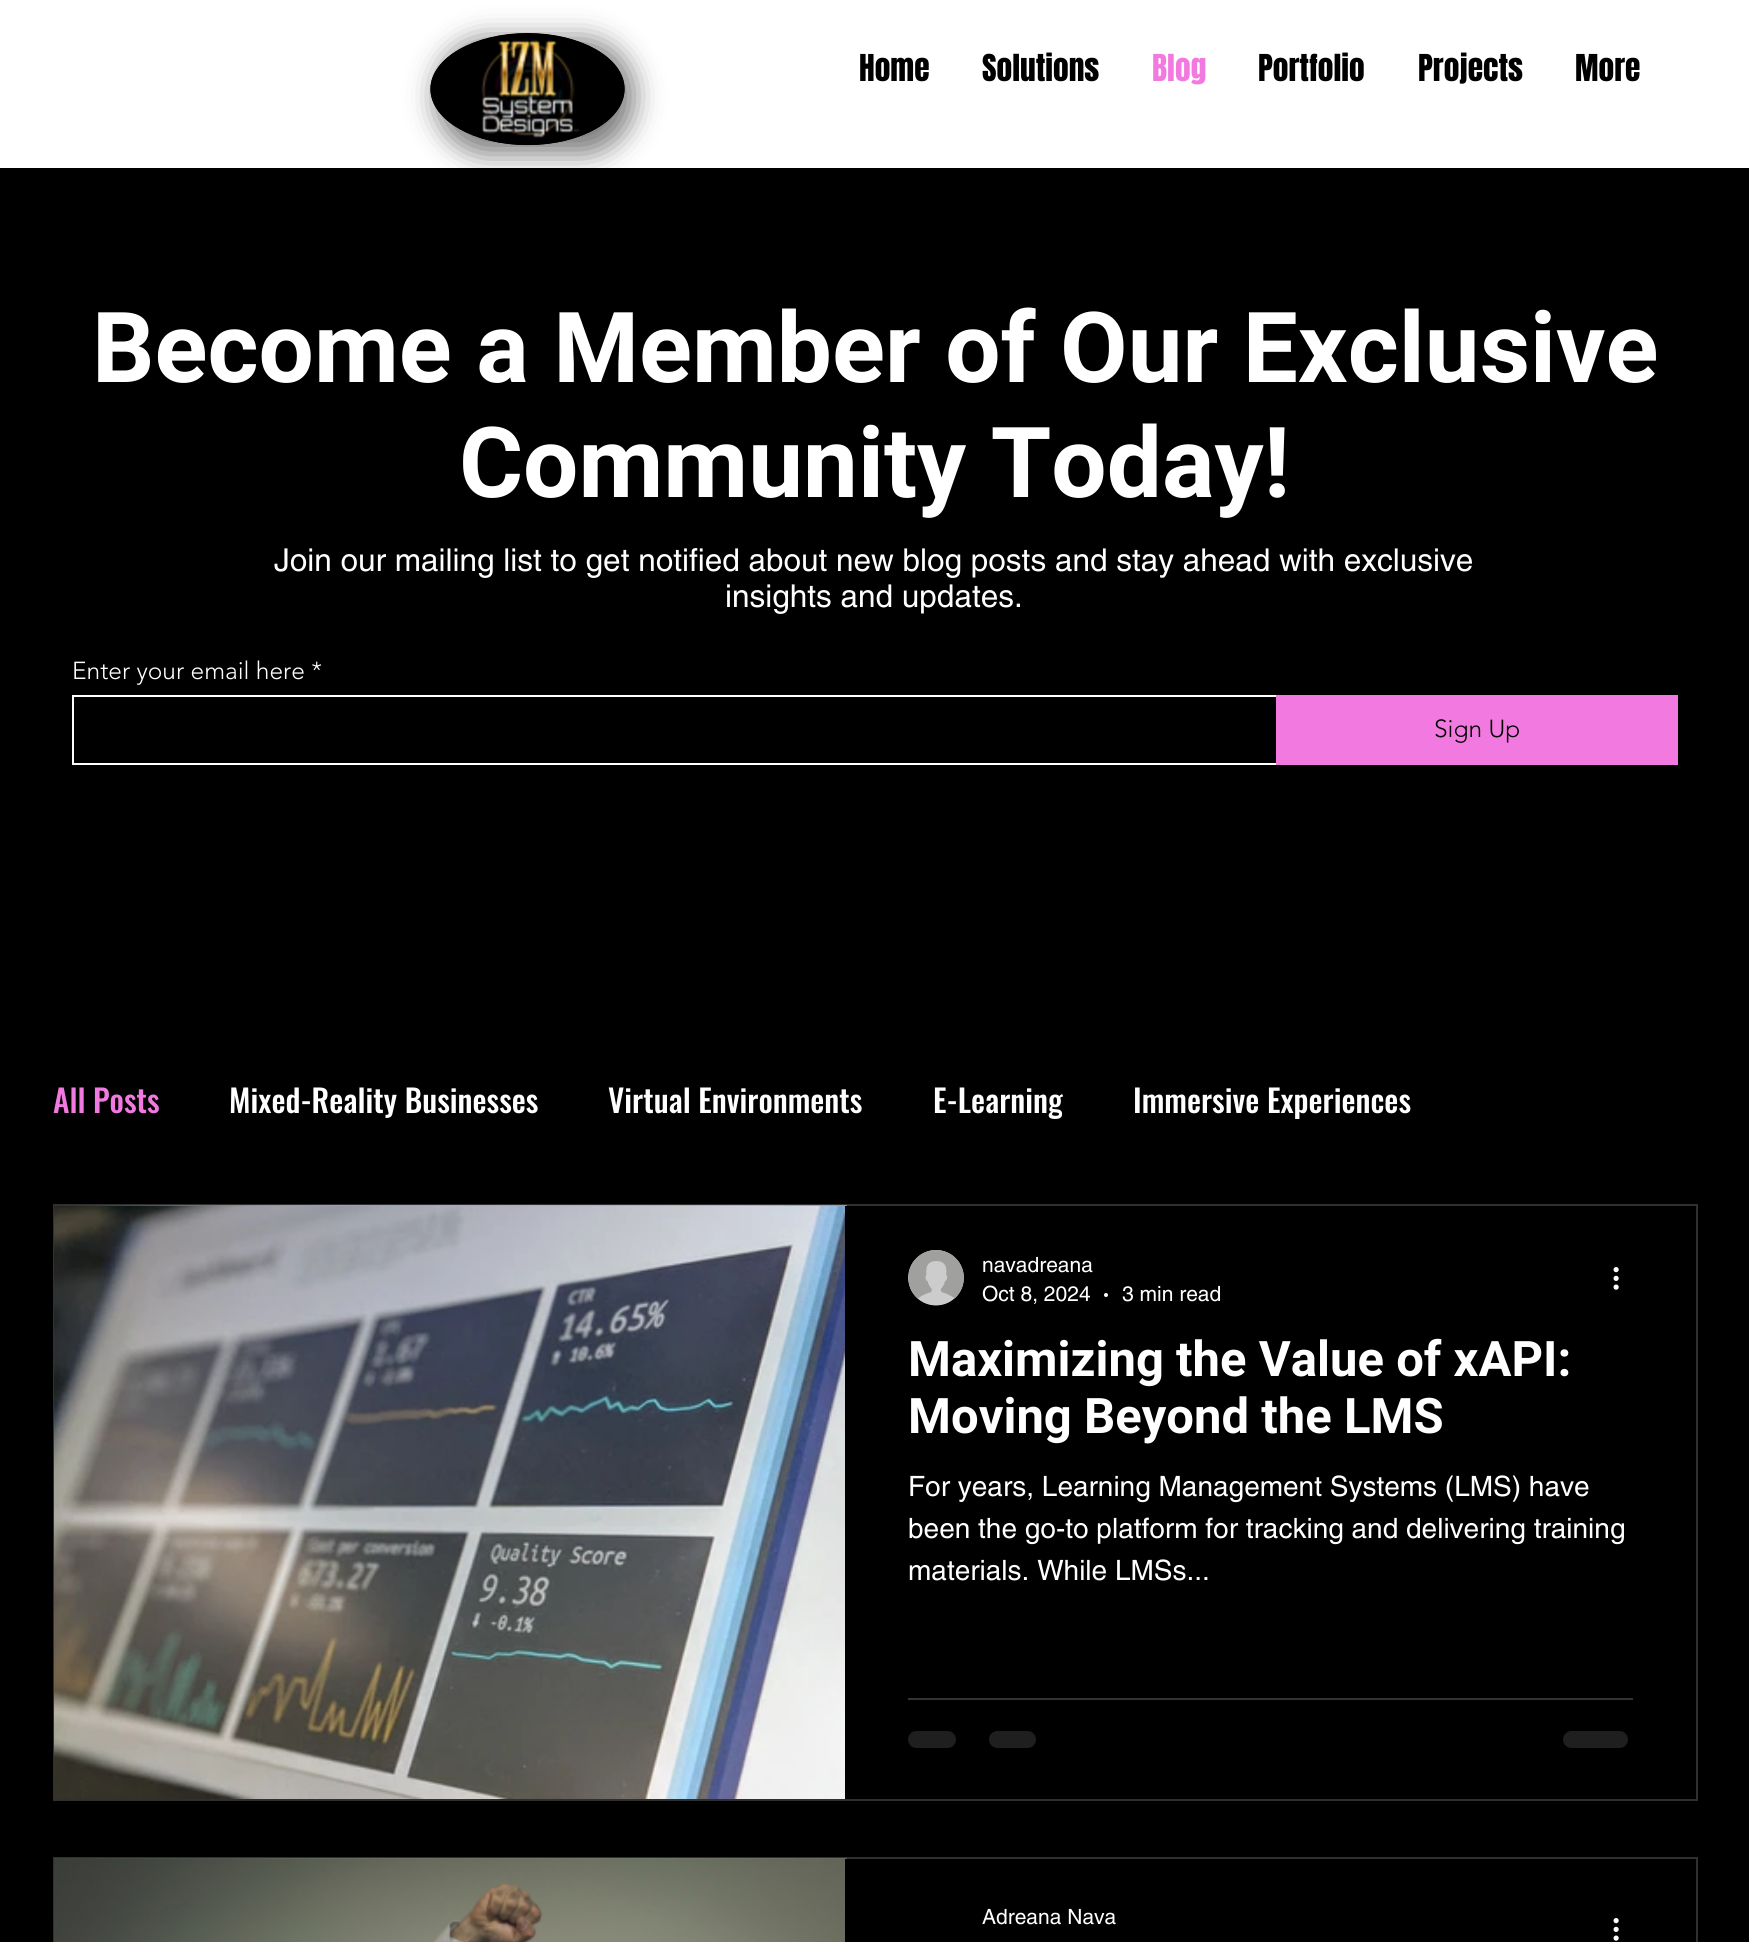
import math
import cairo

surface = cairo.ImageSurface(cairo.FORMAT_RGB24, 1749, 1942)
ctx = cairo.Context(surface)
options = cairo.FontOptions()
options.set_hint_metrics(cairo.HINT_METRICS_OFF)
options.set_hint_style(cairo.HINT_STYLE_NONE)
ctx.set_font_options(options)
ctx.set_miter_limit(4)


def round_rect(x, y, w, h, r):
    ctx.new_sub_path()
    for i, (u, v) in enumerate([(x + w - r, y + h - r), (x + r, y + h - r), (x + r, y + r), (x + w - r, y + r)]):
        ctx.arc(u, v, r, i * math.pi / 2, (i + 1) * math.pi / 2)
    ctx.close_path()


def shadow(x, y, w, h, r, blur, alpha):
    ctx.push_group_with_content(cairo.CONTENT_ALPHA)
    ctx.set_operator(cairo.OPERATOR_SOURCE)
    for i in range(15, -16, -2):
        e = blur * i / 6
        if min(w, h) + 2 * e > 0:
            ctx.set_source_rgba(0, 0, 0, alpha * math.erfc((i - 1) / 8.5) / 2)
            round_rect(x - e, y - e, w + 2 * e, h + 2 * e, max(0, min(r + e + blur * .6, min(w, h) / 2 + e)))
            ctx.fill()
    ctx.mask(ctx.pop_group())


def picture(path, x, y, w, h):
    ctx.save()
    ctx.set_source_surface(cairo.ImageSurface.create_from_png(path), x, y)
    ctx.rectangle(x, y, w, h)
    ctx.fill()
    ctx.restore()


ctx.set_source_rgb(1, 1, 1)
ctx.paint()
ctx.set_source_rgb(0, 0, 0)
ctx.rectangle(0, 168, 1749, 1774)
ctx.fill()
ctx.set_source_rgb(0, 0, 0)
shadow(436, 39, 198, 115, 57.5, 14, 0.52)
ctx.set_source_rgb(0, 0, 0)
ctx.new_path()
ctx.move_to(527.5, 33)
ctx.curve_to(581, 33, 624.5, 58, 624.5, 89)
ctx.curve_to(624.5, 120, 581, 145, 527.5, 145)
ctx.curve_to(474, 145, 430.5, 120, 430.5, 89)
ctx.curve_to(430.5, 58, 474, 33, 527.5, 33)
ctx.close_path()
ctx.fill()
ctx.new_path()
ctx.move_to(527.5, 36)
ctx.curve_to(580, 36, 622, 60, 622, 89)
ctx.curve_to(622, 118.5, 580, 142.5, 527.5, 142.5)
ctx.curve_to(475.5, 142.5, 433, 118.5, 433, 89)
ctx.curve_to(433, 60, 475.5, 36, 527.5, 36)
ctx.close_path()
ctx.set_line_width(5.2)
ctx.stroke()
picture("img1.png", 481, 39, 99, 99)
ctx.select_font_face("Anton")
ctx.set_font_size(31.5)
ctx.move_to(859, 81)
ctx.show_text("Home")
ctx.move_to(982, 81)
ctx.show_text("Solutions")
ctx.set_source_rgb(0.949, 0.475, 0.878)
ctx.move_to(1152, 81)
ctx.show_text("Blog")
ctx.set_source_rgb(0, 0, 0)
ctx.move_to(1258, 81)
ctx.show_text("Portfolio")
ctx.move_to(1418, 81)
ctx.show_text("Projects")
ctx.move_to(1575, 81)
ctx.show_text("More")
ctx.select_font_face("Roboto", cairo.FONT_SLANT_NORMAL, cairo.FONT_WEIGHT_BOLD)
ctx.set_font_size(98)
ctx.set_source_rgb(1, 1, 1)
ctx.move_to(92, 382)
ctx.show_text("Become a Member of Our Exclusive")
ctx.move_to(459, 497)
ctx.show_text("Community Today!")
ctx.select_font_face("helvetica")
ctx.set_font_size(31.5)
ctx.move_to(274, 571)
ctx.show_text("Join our mailing list to get notified about new blog posts and stay ahead with exclusive")
ctx.move_to(725, 607)
ctx.show_text("insights and updates.")
ctx.select_font_face("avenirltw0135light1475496 Light")
ctx.set_font_size(24.5)
ctx.move_to(72, 679)
ctx.show_text("Enter your email here *")
ctx.rectangle(73, 696, 1204, 68)
ctx.set_line_width(2)
ctx.stroke()
ctx.set_source_rgb(0.949, 0.475, 0.878)
ctx.rectangle(1276, 695, 402, 70)
ctx.fill()
ctx.set_source_rgb(0, 0, 0)
ctx.move_to(1434, 737)
ctx.show_text("Sign Up")
ctx.select_font_face("Oswald Medium")
ctx.set_font_size(31.5)
ctx.set_source_rgb(0.949, 0.475, 0.878)
ctx.move_to(53, 1113)
ctx.show_text("All Posts")
ctx.set_source_rgb(1, 1, 1)
ctx.move_to(229, 1113)
ctx.show_text("Mixed-Reality Businesses")
ctx.move_to(608, 1113)
ctx.show_text("Virtual Environments")
ctx.move_to(933, 1113)
ctx.show_text("E-Learning")
ctx.move_to(1133, 1113)
ctx.show_text("Immersive Experiences")
ctx.rectangle(54, 1205, 1643, 595)
ctx.set_source_rgb(0.188, 0.188, 0.188)
ctx.stroke()
picture("img2.png", 54, 1205, 793, 1)
picture("img3.png", 54, 1206, 791, 593)
picture("img4.png", 908, 1250, 56, 56)
ctx.select_font_face("helvetica")
ctx.set_font_size(21)
ctx.set_source_rgb(1, 1, 1)
ctx.move_to(982, 1272)
ctx.show_text("navadreana")
ctx.move_to(982, 1301)
ctx.show_text("Oct 8, 2024")
ctx.new_path()
ctx.arc(1106, 1295, 2, 0, 2 * math.pi)
ctx.fill()
ctx.move_to(1122, 1301)
ctx.show_text("3 min read")
picture("img5.png", 1613, 1267, 6, 23)
ctx.select_font_face("Roboto", cairo.FONT_SLANT_NORMAL, cairo.FONT_WEIGHT_BOLD)
ctx.set_font_size(49)
ctx.move_to(908, 1376)
ctx.show_text("Maximizing the Value of xAPI:")
ctx.move_to(908, 1433)
ctx.show_text("Moving Beyond the LMS")
ctx.select_font_face("helvetica")
ctx.set_font_size(28)
ctx.move_to(908, 1496)
ctx.show_text("For years, Learning Management Systems (LMS) have")
ctx.move_to(908, 1538)
ctx.show_text("been the go-to platform for tracking and delivering training")
ctx.move_to(908, 1580)
ctx.show_text("materials. While LMSs...")
ctx.set_source_rgb(0.2, 0.2, 0.2)
ctx.rectangle(908, 1698, 725, 2)
ctx.fill()
ctx.set_source_rgb(0.122, 0.122, 0.122)
round_rect(908, 1731, 48, 17, 8.5)
ctx.fill()
round_rect(989, 1731, 47, 17, 8.5)
ctx.fill()
round_rect(1563, 1731, 65, 17, 8.5)
ctx.fill()
ctx.rectangle(54, 1858, 1643, 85)
ctx.set_source_rgb(0.188, 0.188, 0.188)
ctx.stroke()
picture("img6.png", 54, 1858, 793, 1)
picture("img7.png", 54, 1859, 791, 83)
ctx.set_font_size(21)
ctx.set_source_rgb(1, 1, 1)
ctx.move_to(982, 1924)
ctx.show_text("Adreana Nava")
picture("img5.png", 1613, 1918, 6, 23)
surface.write_to_png("page.png")
